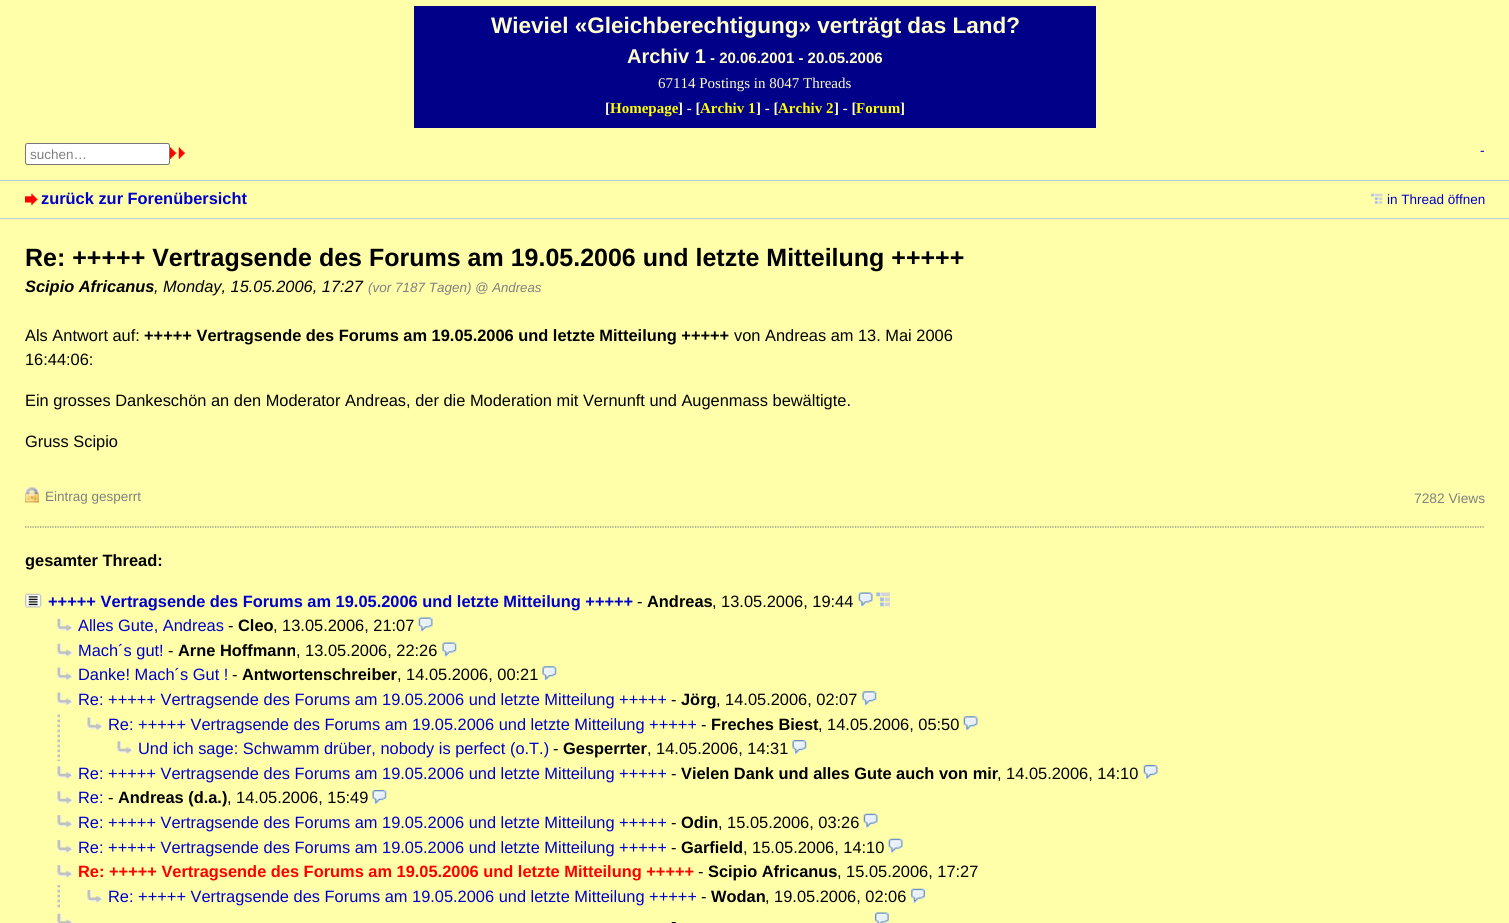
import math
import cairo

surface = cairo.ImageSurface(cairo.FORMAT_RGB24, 1509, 923)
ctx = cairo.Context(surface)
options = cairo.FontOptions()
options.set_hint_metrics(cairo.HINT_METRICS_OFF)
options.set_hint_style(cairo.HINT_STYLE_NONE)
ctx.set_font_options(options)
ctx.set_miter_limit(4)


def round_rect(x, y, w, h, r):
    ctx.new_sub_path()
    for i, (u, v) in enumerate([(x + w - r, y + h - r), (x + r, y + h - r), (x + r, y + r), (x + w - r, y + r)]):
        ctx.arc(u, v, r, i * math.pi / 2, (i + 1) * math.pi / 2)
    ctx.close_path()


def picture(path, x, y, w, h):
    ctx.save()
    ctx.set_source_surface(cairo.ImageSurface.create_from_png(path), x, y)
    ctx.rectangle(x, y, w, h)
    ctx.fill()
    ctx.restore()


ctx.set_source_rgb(1, 1, 0.667)
ctx.paint()
ctx.set_source_rgb(0, 0, 0.533)
ctx.rectangle(414, 6, 682, 122)
ctx.fill()
ctx.select_font_face("Liberation Sans", cairo.FONT_SLANT_NORMAL, cairo.FONT_WEIGHT_BOLD)
ctx.set_font_size(22.5)
ctx.set_source_rgb(1, 1, 0.8)
ctx.move_to(491, 33)
ctx.show_text("Wieviel «Gleichberechtigung» verträgt das Land?")
ctx.set_font_size(20)
ctx.move_to(627, 63)
ctx.show_text("Archiv 1")
ctx.set_font_size(15)
ctx.move_to(710, 63)
ctx.show_text("- 20.06.2001 - 20.05.2006")
ctx.select_font_face("Liberation Serif")
ctx.move_to(658, 88)
ctx.show_text("67114 Postings in 8047 Threads")
ctx.select_font_face("Liberation Serif", cairo.FONT_SLANT_NORMAL, cairo.FONT_WEIGHT_BOLD)
ctx.move_to(605, 113)
ctx.show_text("[")
ctx.set_source_rgb(1, 1, 0)
ctx.move_to(610, 113)
ctx.show_text("Homepage")
ctx.set_source_rgb(1, 1, 0.8)
ctx.move_to(678, 113)
ctx.show_text("] - [")
ctx.set_source_rgb(1, 1, 0)
ctx.move_to(700, 113)
ctx.show_text("Archiv 1")
ctx.set_source_rgb(1, 1, 0.8)
ctx.move_to(756, 113)
ctx.show_text("] - [")
ctx.set_source_rgb(1, 1, 0)
ctx.move_to(778, 113)
ctx.show_text("Archiv 2")
ctx.set_source_rgb(1, 1, 0.8)
ctx.move_to(834, 113)
ctx.show_text("] - [")
ctx.set_source_rgb(1, 1, 0)
ctx.move_to(856, 113)
ctx.show_text("Forum")
ctx.set_source_rgb(1, 1, 0.8)
ctx.move_to(900, 113)
ctx.show_text("]")
ctx.set_source_rgb(1, 1, 1)
round_rect(25.5, 143.5, 144, 21, 2)
ctx.fill_preserve()
ctx.set_source_rgb(0.463, 0.463, 0.463)
ctx.set_line_width(1)
ctx.stroke()
ctx.select_font_face("Liberation Sans")
ctx.set_font_size(13.5)
ctx.set_source_rgb(0.502, 0.502, 0.502)
ctx.move_to(30, 159)
ctx.show_text("suchen…")
picture("img1.png", 170, 147, 15, 12)
ctx.set_font_size(13.75)
ctx.set_source_rgb(0, 0, 0.8)
ctx.move_to(1480, 155)
ctx.show_text("-")
ctx.set_source_rgb(0.729, 0.796, 0.875)
ctx.rectangle(0, 180, 1509, 1)
ctx.fill()
ctx.rectangle(0, 218, 1509, 1)
ctx.fill()
picture("img2.png", 25, 193, 13, 13)
ctx.select_font_face("Liberation Sans", cairo.FONT_SLANT_NORMAL, cairo.FONT_WEIGHT_BOLD)
ctx.set_font_size(16.4)
ctx.set_source_rgb(0, 0, 0.8)
ctx.move_to(41, 204)
ctx.show_text("zurück zur Forenübersicht")
picture("img3.png", 1371, 193, 12, 11)
ctx.select_font_face("Liberation Sans")
ctx.set_font_size(13.5)
ctx.move_to(1387, 204)
ctx.show_text("in Thread öffnen")
ctx.select_font_face("Liberation Sans", cairo.FONT_SLANT_NORMAL, cairo.FONT_WEIGHT_BOLD)
ctx.set_font_size(25)
ctx.set_source_rgb(0, 0, 0)
ctx.move_to(25, 266)
ctx.show_text("Re: +++++ Vertragsende des Forums am 19.05.2006 und letzte Mitteilung +++++")
ctx.select_font_face("Liberation Sans", cairo.FONT_SLANT_ITALIC, cairo.FONT_WEIGHT_BOLD)
ctx.set_font_size(16.4)
ctx.move_to(25, 292)
ctx.show_text("Scipio Africanus")
ctx.select_font_face("Liberation Sans", cairo.FONT_SLANT_ITALIC)
ctx.move_to(154, 292)
ctx.show_text(", Monday, 15.05.2006, 17:27")
ctx.set_font_size(13.5)
ctx.set_source_rgb(0.502, 0.502, 0.502)
ctx.move_to(368, 292)
ctx.show_text("(vor 7187 Tagen)")
ctx.set_font_size(13.25)
ctx.move_to(475, 292)
ctx.show_text("@ Andreas")
ctx.select_font_face("Liberation Sans")
ctx.set_font_size(16.4)
ctx.set_source_rgb(0, 0, 0)
ctx.move_to(25, 341)
ctx.show_text("Als Antwort auf:")
ctx.select_font_face("Liberation Sans", cairo.FONT_SLANT_NORMAL, cairo.FONT_WEIGHT_BOLD)
ctx.move_to(144, 341)
ctx.show_text("+++++ Vertragsende des Forums am 19.05.2006 und letzte Mitteilung +++++")
ctx.select_font_face("Liberation Sans")
ctx.move_to(734, 341)
ctx.show_text("von Andreas am 13. Mai 2006")
ctx.move_to(25, 365)
ctx.show_text("16:44:06:")
ctx.move_to(25, 406)
ctx.show_text("Ein grosses Dankeschön an den Moderator Andreas, der die Moderation mit Vernunft und Augenmass bewältigte.")
ctx.move_to(25, 447)
ctx.show_text("Gruss Scipio")
picture("img4.png", 25, 487, 14, 16)
ctx.set_font_size(13.5)
ctx.set_source_rgb(0.502, 0.502, 0.502)
ctx.move_to(45, 501)
ctx.show_text("Eintrag gesperrt")
ctx.set_font_size(13.75)
ctx.move_to(1414, 503)
ctx.show_text("7282 Views")
ctx.new_path()
ctx.move_to(25, 527)
ctx.line_to(1485, 527)
ctx.set_line_width(1.2)
ctx.set_dash([1.25, 1.25])
ctx.stroke()
ctx.select_font_face("Liberation Sans", cairo.FONT_SLANT_NORMAL, cairo.FONT_WEIGHT_BOLD)
ctx.set_font_size(16.4)
ctx.set_source_rgb(0, 0, 0)
ctx.move_to(25, 566)
ctx.show_text("gesamter Thread:")
picture("img5.png", 25, 593, 17, 15)
ctx.set_source_rgb(0, 0, 0.8)
ctx.move_to(48, 607)
ctx.show_text("+++++ Vertragsende des Forums am 19.05.2006 und letzte Mitteilung +++++")
ctx.select_font_face("Liberation Sans")
ctx.set_source_rgb(0, 0, 0)
ctx.move_to(637, 607)
ctx.show_text("-")
ctx.select_font_face("Liberation Sans", cairo.FONT_SLANT_NORMAL, cairo.FONT_WEIGHT_BOLD)
ctx.move_to(647, 607)
ctx.show_text("Andreas")
ctx.select_font_face("Liberation Sans")
ctx.move_to(712, 607)
ctx.show_text(", 13.05.2006, 19:44")
picture("img6.png", 858, 592, 15, 15)
picture("img7.png", 876, 592, 14, 15)
picture("img8.png", 57, 618, 16, 14)
ctx.set_source_rgb(0, 0, 0.8)
ctx.move_to(78, 631)
ctx.show_text("Alles Gute, Andreas")
ctx.set_source_rgb(0, 0, 0)
ctx.move_to(228, 631)
ctx.show_text("-")
ctx.select_font_face("Liberation Sans", cairo.FONT_SLANT_NORMAL, cairo.FONT_WEIGHT_BOLD)
ctx.move_to(238, 631)
ctx.show_text("Cleo")
ctx.select_font_face("Liberation Sans")
ctx.move_to(273, 631)
ctx.show_text(", 13.05.2006, 21:07")
picture("img9.png", 418, 617, 15, 15)
picture("img8.png", 57, 643, 16, 14)
ctx.set_source_rgb(0, 0, 0.8)
ctx.move_to(78, 656)
ctx.show_text("Mach´s gut!")
ctx.set_source_rgb(0, 0, 0)
ctx.move_to(168, 656)
ctx.show_text("-")
ctx.select_font_face("Liberation Sans", cairo.FONT_SLANT_NORMAL, cairo.FONT_WEIGHT_BOLD)
ctx.move_to(178, 656)
ctx.show_text("Arne Hoffmann")
ctx.select_font_face("Liberation Sans")
ctx.move_to(296, 656)
ctx.show_text(", 13.05.2006, 22:26")
picture("img10.png", 442, 642, 15, 15)
picture("img11.png", 57, 667, 16, 14)
ctx.set_source_rgb(0, 0, 0.8)
ctx.move_to(78, 680)
ctx.show_text("Danke! Mach´s Gut !")
ctx.set_source_rgb(0, 0, 0)
ctx.move_to(232, 680)
ctx.show_text("-")
ctx.select_font_face("Liberation Sans", cairo.FONT_SLANT_NORMAL, cairo.FONT_WEIGHT_BOLD)
ctx.move_to(242, 680)
ctx.show_text("Antwortenschreiber")
ctx.select_font_face("Liberation Sans")
ctx.move_to(397, 680)
ctx.show_text(", 14.05.2006, 00:21")
picture("img12.png", 542, 666, 15, 14)
picture("img11.png", 57, 692, 16, 14)
ctx.set_source_rgb(0, 0, 0.8)
ctx.move_to(78, 705)
ctx.show_text("Re: +++++ Vertragsende des Forums am 19.05.2006 und letzte Mitteilung +++++")
ctx.set_source_rgb(0, 0, 0)
ctx.move_to(671, 705)
ctx.show_text("-")
ctx.select_font_face("Liberation Sans", cairo.FONT_SLANT_NORMAL, cairo.FONT_WEIGHT_BOLD)
ctx.move_to(681, 705)
ctx.show_text("Jörg")
ctx.select_font_face("Liberation Sans")
ctx.move_to(716, 705)
ctx.show_text(", 14.05.2006, 02:07")
picture("img13.png", 862, 691, 15, 14)
picture("img14.png", 57, 712, 3, 50)
picture("img15.png", 87, 717, 16, 14)
ctx.set_source_rgb(0, 0, 0.8)
ctx.move_to(108, 730)
ctx.show_text("Re: +++++ Vertragsende des Forums am 19.05.2006 und letzte Mitteilung +++++")
ctx.set_source_rgb(0, 0, 0)
ctx.move_to(701, 730)
ctx.show_text("-")
ctx.select_font_face("Liberation Sans", cairo.FONT_SLANT_NORMAL, cairo.FONT_WEIGHT_BOLD)
ctx.move_to(711, 730)
ctx.show_text("Freches Biest")
ctx.select_font_face("Liberation Sans")
ctx.move_to(818, 730)
ctx.show_text(", 14.05.2006, 05:50")
picture("img16.png", 963, 716, 15, 14)
picture("img17.png", 117, 741, 16, 13)
ctx.set_source_rgb(0, 0, 0.8)
ctx.move_to(138, 754)
ctx.show_text("Und ich sage: Schwamm drüber, nobody is perfect (o.T.)")
ctx.set_source_rgb(0, 0, 0)
ctx.move_to(553, 754)
ctx.show_text("-")
ctx.select_font_face("Liberation Sans", cairo.FONT_SLANT_NORMAL, cairo.FONT_WEIGHT_BOLD)
ctx.move_to(563, 754)
ctx.show_text("Gesperrter")
ctx.select_font_face("Liberation Sans")
ctx.move_to(647, 754)
ctx.show_text(", 14.05.2006, 14:31")
picture("img18.png", 792, 740, 15, 14)
picture("img19.png", 57, 766, 16, 13)
ctx.set_source_rgb(0, 0, 0.8)
ctx.move_to(78, 779)
ctx.show_text("Re: +++++ Vertragsende des Forums am 19.05.2006 und letzte Mitteilung +++++")
ctx.set_source_rgb(0, 0, 0)
ctx.move_to(671, 779)
ctx.show_text("-")
ctx.select_font_face("Liberation Sans", cairo.FONT_SLANT_NORMAL, cairo.FONT_WEIGHT_BOLD)
ctx.move_to(681, 779)
ctx.show_text("Vielen Dank und alles Gute auch von mir")
ctx.select_font_face("Liberation Sans")
ctx.move_to(997, 779)
ctx.show_text(", 14.05.2006, 14:10")
picture("img20.png", 1143, 765, 15, 14)
picture("img19.png", 57, 791, 16, 13)
ctx.set_source_rgb(0, 0, 0.8)
ctx.move_to(78, 803)
ctx.show_text("Re:")
ctx.set_source_rgb(0, 0, 0)
ctx.move_to(108, 803)
ctx.show_text("-")
ctx.select_font_face("Liberation Sans", cairo.FONT_SLANT_NORMAL, cairo.FONT_WEIGHT_BOLD)
ctx.move_to(118, 803)
ctx.show_text("Andreas (d.a.)")
ctx.select_font_face("Liberation Sans")
ctx.move_to(227, 803)
ctx.show_text(", 14.05.2006, 15:49")
picture("img21.png", 372, 790, 15, 14)
picture("img22.png", 57, 815, 16, 13)
ctx.set_source_rgb(0, 0, 0.8)
ctx.move_to(78, 828)
ctx.show_text("Re: +++++ Vertragsende des Forums am 19.05.2006 und letzte Mitteilung +++++")
ctx.set_source_rgb(0, 0, 0)
ctx.move_to(671, 828)
ctx.show_text("-")
ctx.select_font_face("Liberation Sans", cairo.FONT_SLANT_NORMAL, cairo.FONT_WEIGHT_BOLD)
ctx.move_to(681, 828)
ctx.show_text("Odin")
ctx.select_font_face("Liberation Sans")
ctx.move_to(718, 828)
ctx.show_text(", 15.05.2006, 03:26")
picture("img23.png", 863, 813, 15, 15)
picture("img22.png", 57, 840, 16, 13)
ctx.set_source_rgb(0, 0, 0.8)
ctx.move_to(78, 853)
ctx.show_text("Re: +++++ Vertragsende des Forums am 19.05.2006 und letzte Mitteilung +++++")
ctx.set_source_rgb(0, 0, 0)
ctx.move_to(671, 853)
ctx.show_text("-")
ctx.select_font_face("Liberation Sans", cairo.FONT_SLANT_NORMAL, cairo.FONT_WEIGHT_BOLD)
ctx.move_to(681, 853)
ctx.show_text("Garfield")
ctx.select_font_face("Liberation Sans")
ctx.move_to(743, 853)
ctx.show_text(", 15.05.2006, 14:10")
picture("img23.png", 888, 838, 15, 15)
picture("img22.png", 57, 865, 16, 13)
ctx.select_font_face("Liberation Sans", cairo.FONT_SLANT_NORMAL, cairo.FONT_WEIGHT_BOLD)
ctx.set_source_rgb(1, 0, 0)
ctx.move_to(78, 877)
ctx.show_text("Re: +++++ Vertragsende des Forums am 19.05.2006 und letzte Mitteilung +++++")
ctx.select_font_face("Liberation Sans")
ctx.set_source_rgb(0, 0, 0)
ctx.move_to(698, 877)
ctx.show_text("-")
ctx.select_font_face("Liberation Sans", cairo.FONT_SLANT_NORMAL, cairo.FONT_WEIGHT_BOLD)
ctx.move_to(708, 877)
ctx.show_text("Scipio Africanus")
ctx.select_font_face("Liberation Sans")
ctx.move_to(837, 877)
ctx.show_text(", 15.05.2006, 17:27")
picture("img24.png", 57, 885, 3, 23)
picture("img25.png", 87, 890, 16, 13)
ctx.set_source_rgb(0, 0, 0.8)
ctx.move_to(108, 902)
ctx.show_text("Re: +++++ Vertragsende des Forums am 19.05.2006 und letzte Mitteilung +++++")
ctx.set_source_rgb(0, 0, 0)
ctx.move_to(701, 902)
ctx.show_text("-")
ctx.select_font_face("Liberation Sans", cairo.FONT_SLANT_NORMAL, cairo.FONT_WEIGHT_BOLD)
ctx.move_to(711, 902)
ctx.show_text("Wodan")
ctx.select_font_face("Liberation Sans")
ctx.move_to(765, 902)
ctx.show_text(", 19.05.2006, 02:06")
picture("img26.png", 911, 888, 14, 15)
picture("img27.png", 57, 913, 16, 10)
ctx.move_to(671, 927)
ctx.show_text("-")
picture("img28.png", 875, 912, 14, 11)
surface.write_to_png("page.png")
